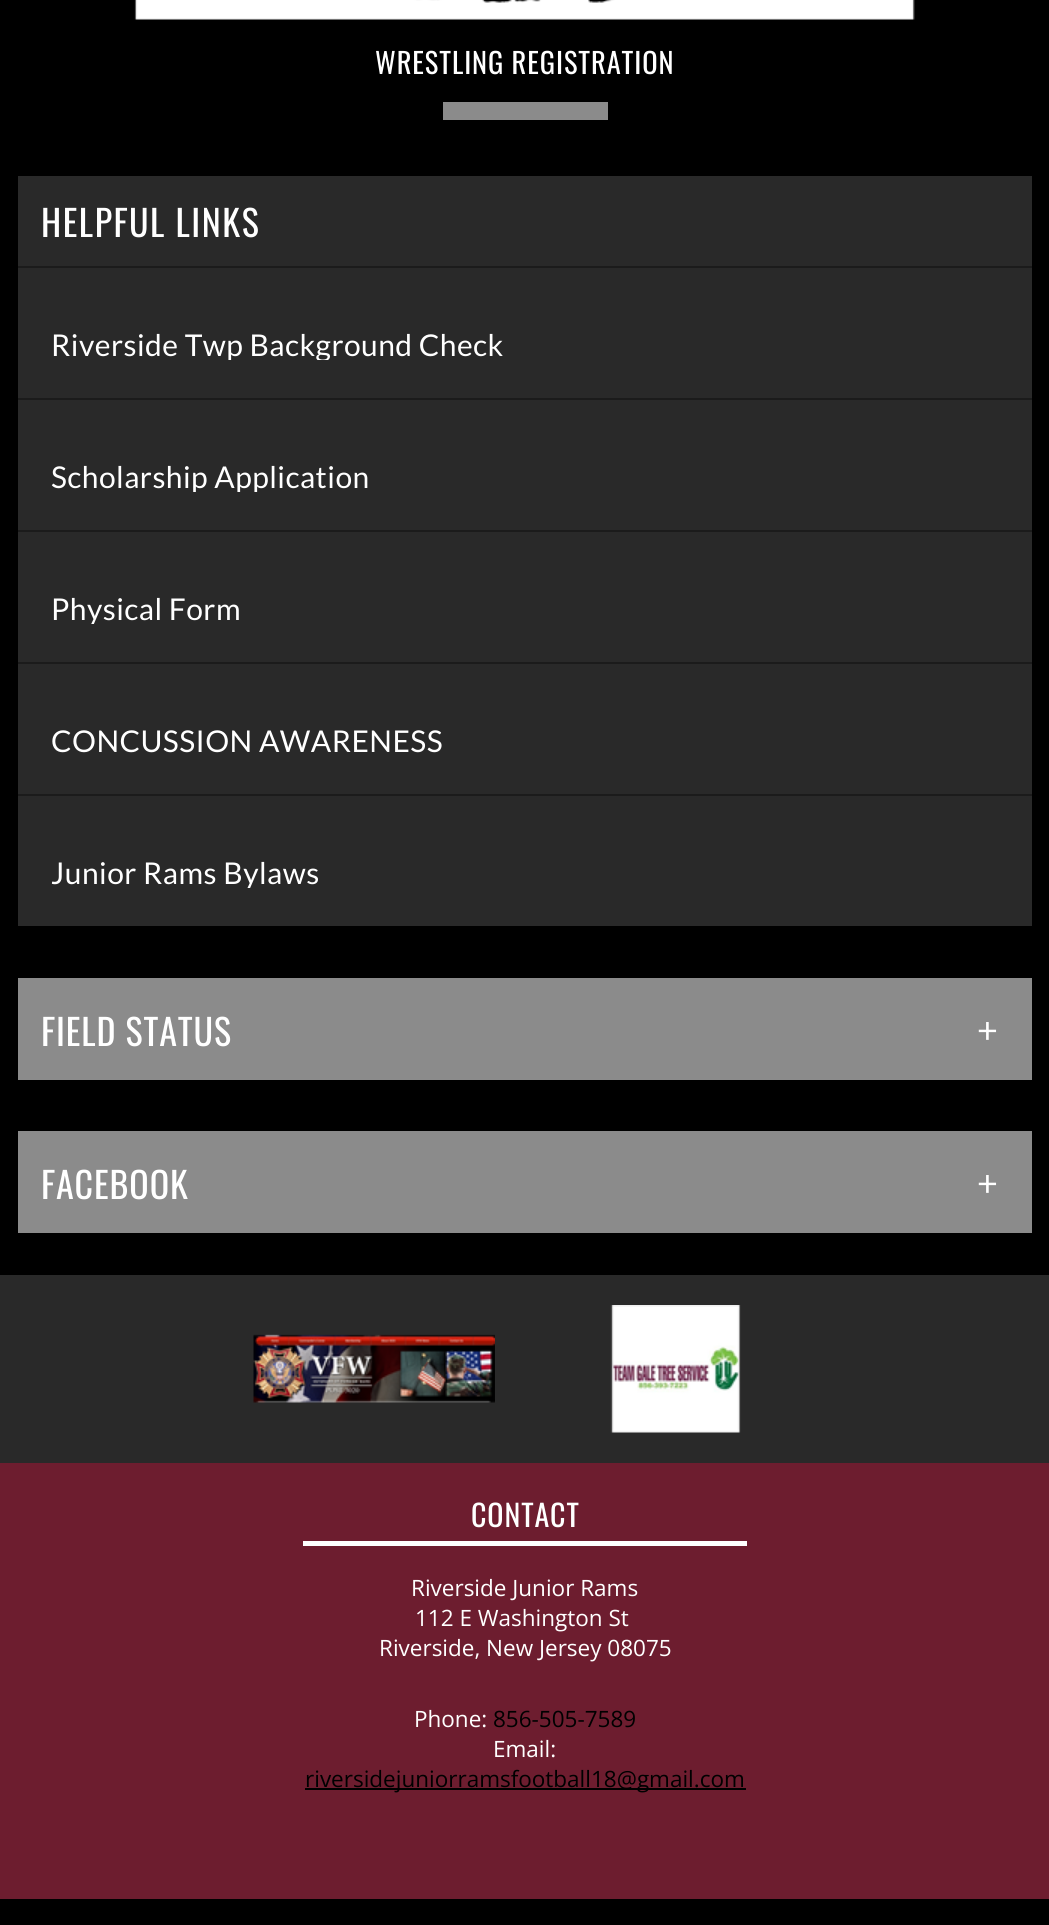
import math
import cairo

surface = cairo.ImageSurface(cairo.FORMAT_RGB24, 1049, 1925)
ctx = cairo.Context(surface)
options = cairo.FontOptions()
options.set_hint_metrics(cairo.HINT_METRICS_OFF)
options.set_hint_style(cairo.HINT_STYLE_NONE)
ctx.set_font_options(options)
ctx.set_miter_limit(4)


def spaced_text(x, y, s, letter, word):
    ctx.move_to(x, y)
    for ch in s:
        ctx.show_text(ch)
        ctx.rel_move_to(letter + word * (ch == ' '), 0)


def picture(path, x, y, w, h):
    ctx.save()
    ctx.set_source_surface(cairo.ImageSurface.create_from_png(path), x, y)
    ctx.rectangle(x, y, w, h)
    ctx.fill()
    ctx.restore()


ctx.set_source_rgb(0, 0, 0)
ctx.paint()
picture("img1.png", 134, 0, 781, 20)
ctx.select_font_face("Oswald")
ctx.set_font_size(28.5)
ctx.set_source_rgb(1, 1, 1)
spaced_text(375, 74, "WRESTLING REGISTRATION", 0.9, 0)
ctx.set_source_rgb(0.545, 0.545, 0.545)
ctx.rectangle(443, 102, 165, 18)
ctx.fill()
ctx.set_source_rgb(0.161, 0.161, 0.161)
ctx.rectangle(18, 176, 1014, 750)
ctx.fill()
ctx.set_font_size(36)
ctx.set_source_rgb(1, 1, 1)
spaced_text(41, 237, "HELPFUL LINKS", 1.5, 0)
ctx.set_source_rgb(0.106, 0.106, 0.106)
ctx.rectangle(18, 266, 1014, 2)
ctx.fill()
ctx.save()
ctx.rectangle(51, 330, 453, 30)
ctx.clip()
ctx.select_font_face("Lato")
ctx.set_font_size(30)
ctx.set_source_rgb(1, 1, 1)
spaced_text(51, 356, "Riverside Twp Background Check", 0.45, 0)
ctx.restore()
ctx.rectangle(18, 398, 1014, 2)
ctx.fill()
ctx.save()
ctx.rectangle(51, 462, 318, 30)
ctx.clip()
ctx.select_font_face("Lato")
ctx.set_font_size(30)
ctx.set_source_rgb(1, 1, 1)
spaced_text(51, 488, "Scholarship Application", 0.45, 0)
ctx.restore()
ctx.rectangle(18, 530, 1014, 2)
ctx.fill()
ctx.save()
ctx.rectangle(51, 594, 191, 30)
ctx.clip()
ctx.select_font_face("Lato")
ctx.set_font_size(30)
ctx.set_source_rgb(1, 1, 1)
spaced_text(51, 620, "Physical Form", 0.45, 0)
ctx.restore()
ctx.rectangle(18, 662, 1014, 2)
ctx.fill()
ctx.select_font_face("Lato")
ctx.set_font_size(30)
ctx.set_source_rgb(1, 1, 1)
spaced_text(51, 752, "CONCUSSION AWARENESS", 0.45, 0)
ctx.set_source_rgb(0.106, 0.106, 0.106)
ctx.rectangle(18, 794, 1014, 2)
ctx.fill()
ctx.save()
ctx.rectangle(51, 858, 269, 30)
ctx.clip()
ctx.set_source_rgb(1, 1, 1)
spaced_text(51, 884, "Junior Rams Bylaws", 0.45, 0)
ctx.restore()
ctx.set_source_rgb(0.545, 0.545, 0.545)
ctx.rectangle(18, 978, 1014, 102)
ctx.fill()
ctx.select_font_face("Oswald")
ctx.set_font_size(36)
ctx.set_source_rgb(1, 1, 1)
spaced_text(41, 1046, "FIELD STATUS", 0.9, 0)
ctx.select_font_face("Lato")
spaced_text(977, 1043, "+", 0.9, 0)
ctx.set_source_rgb(0.545, 0.545, 0.545)
ctx.rectangle(18, 1131, 1014, 102)
ctx.fill()
ctx.select_font_face("Oswald")
ctx.set_source_rgb(1, 1, 1)
spaced_text(41, 1199, "FACEBOOK", 0.9, 0)
ctx.select_font_face("Lato")
spaced_text(977, 1196, "+", 0.9, 0)
ctx.set_source_rgb(0.161, 0.161, 0.161)
ctx.rectangle(0, 1275, 1049, 188)
ctx.fill()
picture("img2.png", 253, 1334, 242, 69)
picture("img3.png", 610, 1305, 131, 128)
ctx.set_source_rgb(0.427, 0.114, 0.184)
ctx.rectangle(0, 1463, 1049, 436)
ctx.fill()
ctx.select_font_face("Oswald")
ctx.set_font_size(30)
ctx.set_source_rgb(1, 1, 1)
spaced_text(471, 1527, "CONTACT", 0.9, 0)
ctx.rectangle(303, 1541, 444, 5)
ctx.fill()
ctx.select_font_face("Open Sans")
ctx.set_font_size(22.5)
ctx.move_to(411, 1596)
ctx.show_text("Riverside Junior Rams")
ctx.move_to(415, 1626)
ctx.show_text("112 E Washington St")
ctx.move_to(379, 1656)
ctx.show_text("Riverside, New Jersey 08075")
ctx.move_to(414, 1727)
ctx.show_text("Phone:")
ctx.set_source_rgb(0, 0, 0)
ctx.move_to(493, 1727)
ctx.show_text("856-505-7589")
ctx.set_source_rgb(1, 1, 1)
ctx.move_to(493, 1757)
ctx.show_text("Email:")
ctx.set_source_rgb(0, 0, 0)
ctx.rectangle(305, 1788, 441, 2)
ctx.fill()
ctx.move_to(305, 1787)
ctx.show_text("riversidejuniorramsfootball18@gmail.com")
surface.write_to_png("page.png")
